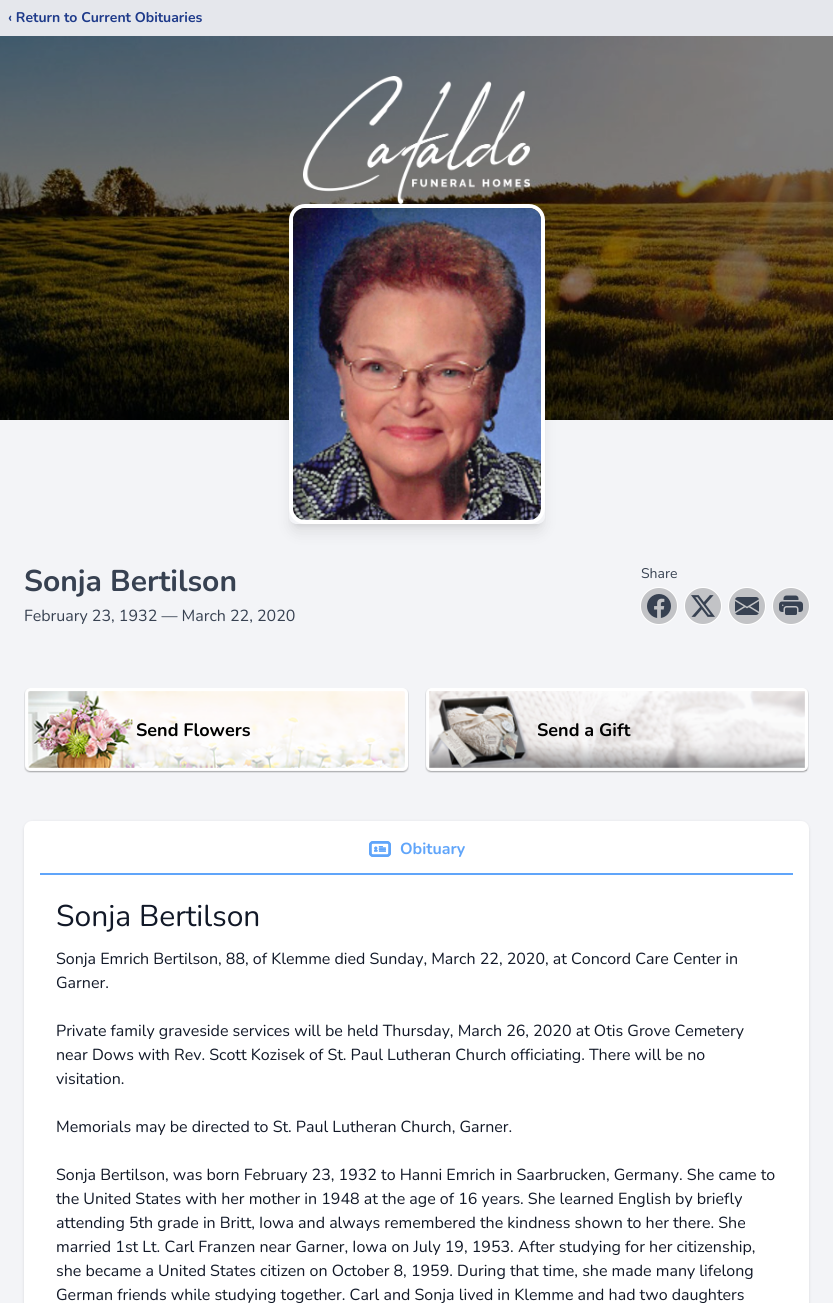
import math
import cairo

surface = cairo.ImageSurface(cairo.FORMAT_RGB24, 833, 1303)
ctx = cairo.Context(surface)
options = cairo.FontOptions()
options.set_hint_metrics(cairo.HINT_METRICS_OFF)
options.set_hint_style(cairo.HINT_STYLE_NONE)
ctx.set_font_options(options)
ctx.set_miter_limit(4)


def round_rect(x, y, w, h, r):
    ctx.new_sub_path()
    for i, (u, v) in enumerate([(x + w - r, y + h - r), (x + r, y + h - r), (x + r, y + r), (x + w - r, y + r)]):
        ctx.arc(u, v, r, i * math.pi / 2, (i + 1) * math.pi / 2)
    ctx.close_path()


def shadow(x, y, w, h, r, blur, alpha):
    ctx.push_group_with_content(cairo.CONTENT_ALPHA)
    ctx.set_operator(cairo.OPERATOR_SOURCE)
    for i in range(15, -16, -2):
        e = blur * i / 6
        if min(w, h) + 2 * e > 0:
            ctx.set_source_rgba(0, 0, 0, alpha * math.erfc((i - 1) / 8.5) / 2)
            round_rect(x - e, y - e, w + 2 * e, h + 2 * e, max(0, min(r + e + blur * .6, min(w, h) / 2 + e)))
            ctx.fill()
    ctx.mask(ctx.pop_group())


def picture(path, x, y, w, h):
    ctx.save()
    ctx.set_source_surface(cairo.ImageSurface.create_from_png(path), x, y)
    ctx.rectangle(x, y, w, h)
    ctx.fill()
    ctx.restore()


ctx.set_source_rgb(0.953, 0.957, 0.965)
ctx.paint()
ctx.set_source_rgb(0.898, 0.906, 0.922)
ctx.rectangle(0, 0, 833, 36)
ctx.fill()
ctx.select_font_face("Nunito", cairo.FONT_SLANT_NORMAL, cairo.FONT_WEIGHT_BOLD)
ctx.set_font_size(14)
ctx.set_source_rgb(0.118, 0.227, 0.541)
ctx.move_to(8, 22)
ctx.show_text("‹ Return to Current Obituaries")
picture("img1.png", 0, 36, 833, 384)
picture("img2.png", 303, 76, 227, 128)
ctx.save()
ctx.set_fill_rule(cairo.FILL_RULE_EVEN_ODD)
ctx.new_path()
ctx.move_to(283, 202)
ctx.line_to(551, 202)
ctx.line_to(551, 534)
ctx.line_to(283, 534)
ctx.close_path()
ctx.move_to(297, 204)
ctx.line_to(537, 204)
ctx.curve_to(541.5, 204, 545, 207.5, 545, 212)
ctx.line_to(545, 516)
ctx.curve_to(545, 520.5, 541.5, 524, 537, 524)
ctx.line_to(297, 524)
ctx.curve_to(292.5, 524, 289, 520.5, 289, 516)
ctx.line_to(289, 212)
ctx.curve_to(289, 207.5, 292.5, 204, 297, 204)
ctx.close_path()
ctx.clip()
ctx.set_source_rgb(0, 0, 0)
shadow(293, 212, 248, 312, 4, 3, 0.1)
ctx.restore()
ctx.save()
ctx.set_fill_rule(cairo.FILL_RULE_EVEN_ODD)
ctx.new_path()
ctx.move_to(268, 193)
ctx.line_to(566, 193)
ctx.line_to(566, 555)
ctx.line_to(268, 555)
ctx.close_path()
ctx.move_to(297, 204)
ctx.line_to(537, 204)
ctx.curve_to(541.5, 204, 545, 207.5, 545, 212)
ctx.line_to(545, 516)
ctx.curve_to(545, 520.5, 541.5, 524, 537, 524)
ctx.line_to(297, 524)
ctx.curve_to(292.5, 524, 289, 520.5, 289, 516)
ctx.line_to(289, 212)
ctx.curve_to(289, 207.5, 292.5, 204, 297, 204)
ctx.close_path()
ctx.clip()
ctx.set_source_rgb(0, 0, 0)
shadow(292, 217, 250, 314, 5, 7.5, 0.1)
ctx.restore()
round_rect(291, 206, 252, 316, 14)
ctx.set_source_rgb(1, 1, 1)
ctx.set_line_width(4)
ctx.stroke()
picture("img3.png", 293, 208, 248, 312)
ctx.set_font_size(30)
ctx.set_source_rgb(0.216, 0.255, 0.318)
ctx.move_to(24, 591)
ctx.show_text("Sonja Bertilson")
ctx.select_font_face("Nunito")
ctx.set_font_size(16)
ctx.move_to(24, 621)
ctx.show_text("February 23, 1932 — March 22, 2020")
ctx.set_font_size(14)
ctx.move_to(641, 578)
ctx.show_text("Share")
ctx.new_path()
ctx.arc(659, 606, 18.5, 0, 2 * math.pi)
ctx.set_source_rgb(1, 1, 1)
ctx.set_line_width(1)
ctx.stroke()
ctx.set_source_rgba(0, 0, 0, 0.2)
ctx.arc(659, 606, 18, 0, 2 * math.pi)
ctx.fill()
picture("img4.png", 647, 594, 24, 24)
ctx.arc(703, 606, 18.5, 0, 2 * math.pi)
ctx.set_source_rgb(1, 1, 1)
ctx.stroke()
ctx.set_source_rgba(0, 0, 0, 0.2)
ctx.arc(703, 606, 18, 0, 2 * math.pi)
ctx.fill()
picture("img5.png", 691, 595, 24, 22)
ctx.arc(747, 606, 18.5, 0, 2 * math.pi)
ctx.set_source_rgb(1, 1, 1)
ctx.stroke()
ctx.set_source_rgba(0, 0, 0, 0.2)
ctx.arc(747, 606, 18, 0, 2 * math.pi)
ctx.fill()
picture("img6.png", 735, 597, 24, 18)
ctx.arc(791, 606, 18.5, 0, 2 * math.pi)
ctx.set_source_rgb(1, 1, 1)
ctx.stroke()
ctx.set_source_rgba(0, 0, 0, 0.2)
ctx.arc(791, 606, 18, 0, 2 * math.pi)
ctx.fill()
picture("img7.png", 779, 595, 24, 20)
picture("img8.png", 24, 688, 385, 85)
ctx.select_font_face("Nunito", cairo.FONT_SLANT_NORMAL, cairo.FONT_WEIGHT_BOLD)
ctx.set_font_size(18)
ctx.set_source_rgb(0, 0, 0)
ctx.move_to(136, 736)
ctx.show_text("Send Flowers")
picture("img9.png", 425, 688, 384, 85)
ctx.move_to(537, 736)
ctx.show_text("Send a Gift")
ctx.set_source_rgb(0, 0, 0)
shadow(24, 822, 785, 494, 8, 1.5, 0.1)
ctx.set_source_rgb(1, 1, 1)
round_rect(24, 821, 785, 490, 8)
ctx.fill()
ctx.set_source_rgb(0.376, 0.647, 0.98)
ctx.rectangle(40, 873, 753, 2)
ctx.fill()
picture("img10.png", 369, 841, 22, 16)
ctx.set_font_size(16)
ctx.move_to(400, 854)
ctx.show_text("Obituary")
ctx.select_font_face("Nunito")
ctx.set_font_size(30)
ctx.set_source_rgb(0.067, 0.094, 0.153)
ctx.move_to(56, 926)
ctx.show_text("Sonja Bertilson")
ctx.set_font_size(16)
ctx.move_to(56, 964)
ctx.show_text("Sonja Emrich Bertilson, 88, of Klemme died Sunday, March 22, 2020, at Concord Care Center in")
ctx.move_to(56, 988)
ctx.show_text("Garner.")
ctx.move_to(56, 1036)
ctx.show_text("Private family graveside services will be held Thursday, March 26, 2020 at Otis Grove Cemetery")
ctx.move_to(56, 1060)
ctx.show_text("near Dows with Rev. Scott Kozisek of St. Paul Lutheran Church officiating. There will be no")
ctx.move_to(56, 1084)
ctx.show_text("visitation.")
ctx.move_to(56, 1132)
ctx.show_text("Memorials may be directed to St. Paul Lutheran Church, Garner.")
ctx.move_to(56, 1180)
ctx.show_text("Sonja Bertilson, was born February 23, 1932 to Hanni Emrich in Saarbrucken, Germany. She came to")
ctx.move_to(56, 1204)
ctx.show_text("the United States with her mother in 1948 at the age of 16 years. She learned English by briefly")
ctx.move_to(56, 1228)
ctx.show_text("attending 5th grade in Britt, Iowa and always remembered the kindness shown to her there. She")
ctx.move_to(56, 1252)
ctx.show_text("married 1st Lt. Carl Franzen near Garner, Iowa on July 19, 1953. After studying for her citizenship,")
ctx.move_to(56, 1276)
ctx.show_text("she became a United States citizen on October 8, 1959. During that time, she made many lifelong")
ctx.move_to(56, 1300)
ctx.show_text("German friends while studying together. Carl and Sonja lived in Klemme and had two daughters")
surface.write_to_png("page.png")
